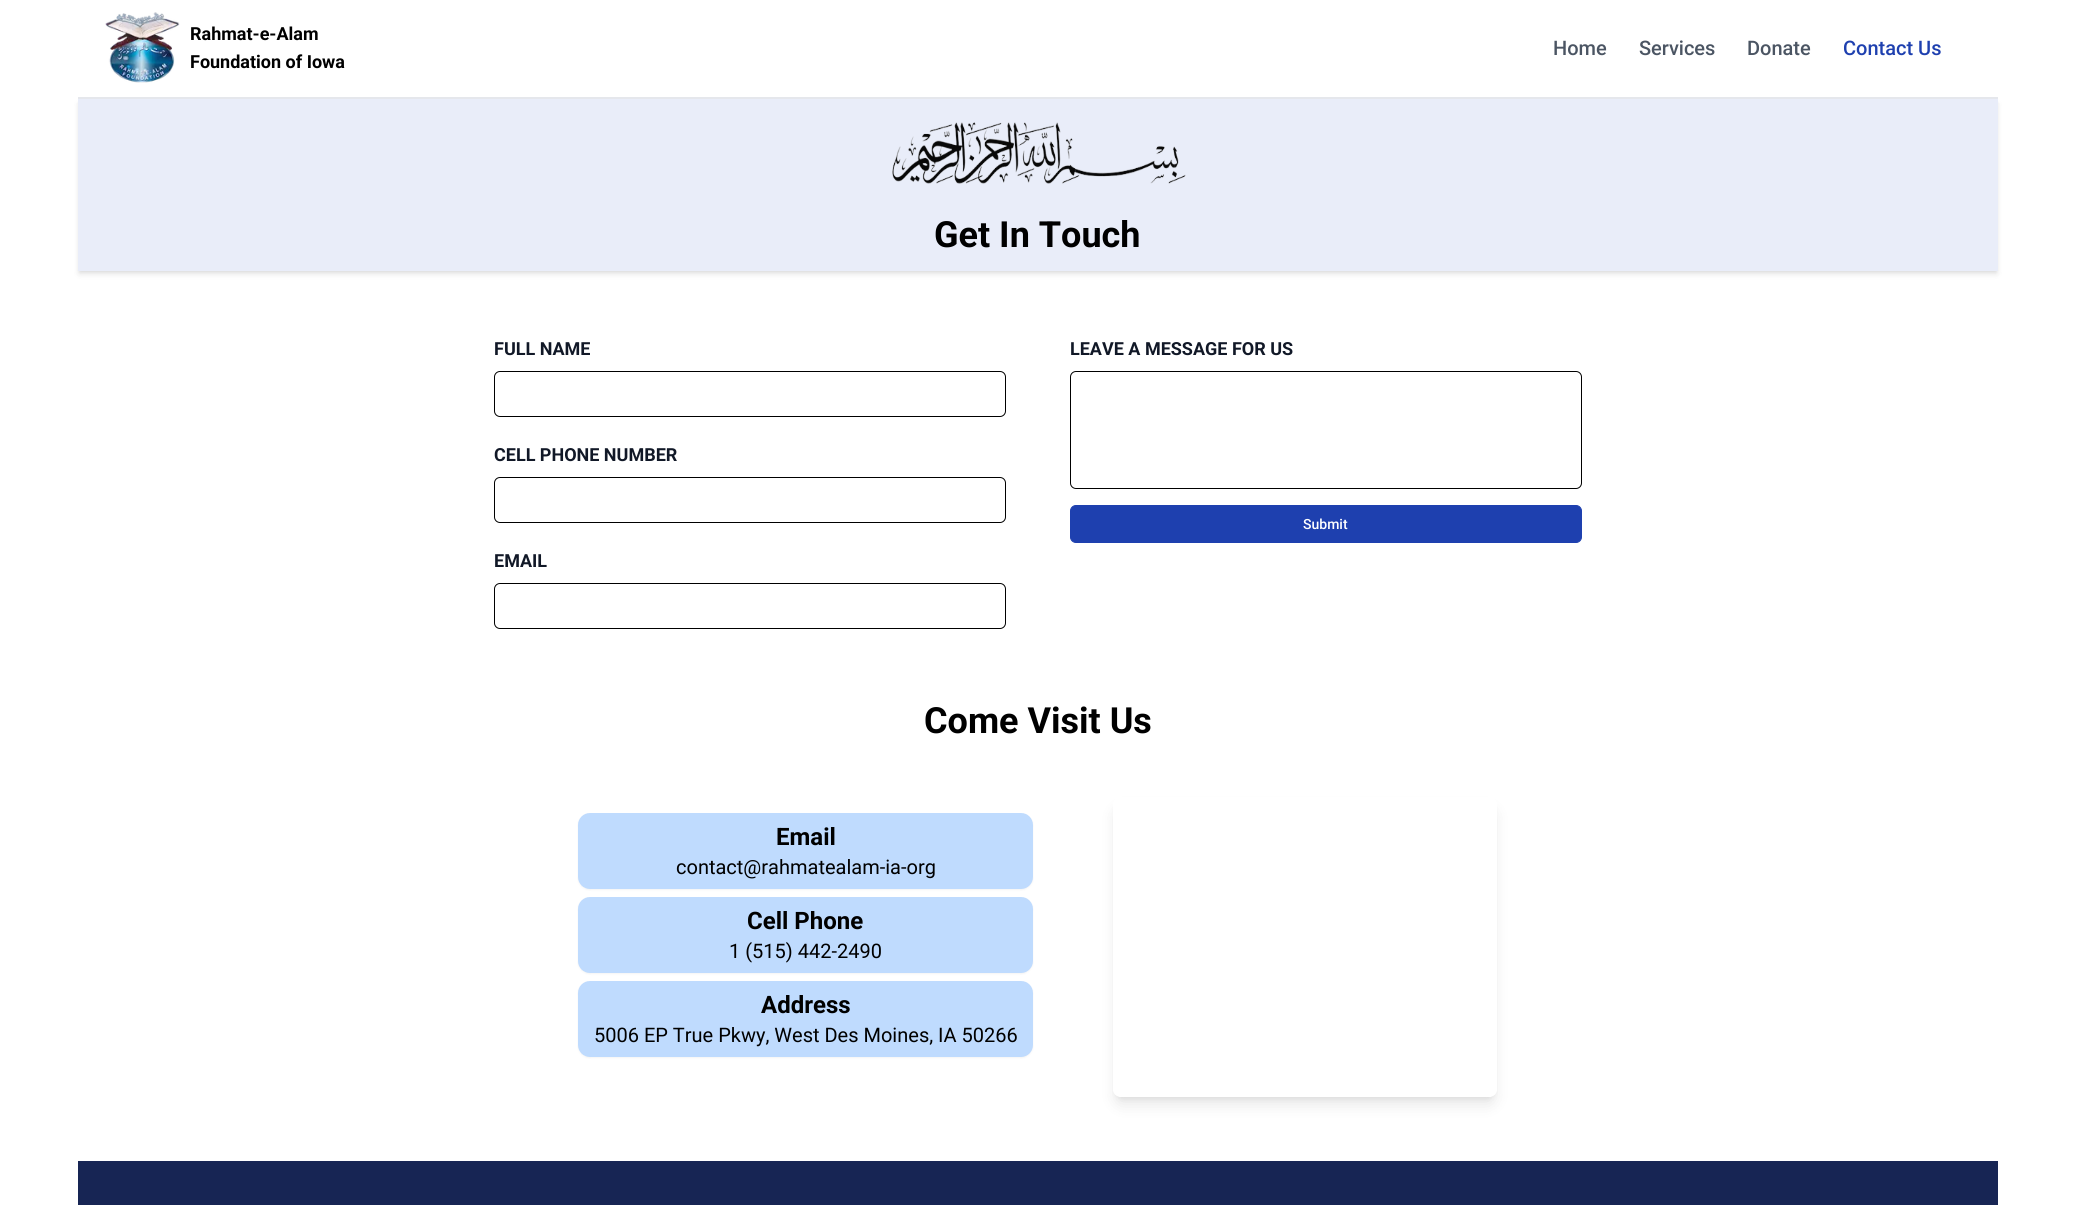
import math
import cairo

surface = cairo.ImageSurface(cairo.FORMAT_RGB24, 2075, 1205)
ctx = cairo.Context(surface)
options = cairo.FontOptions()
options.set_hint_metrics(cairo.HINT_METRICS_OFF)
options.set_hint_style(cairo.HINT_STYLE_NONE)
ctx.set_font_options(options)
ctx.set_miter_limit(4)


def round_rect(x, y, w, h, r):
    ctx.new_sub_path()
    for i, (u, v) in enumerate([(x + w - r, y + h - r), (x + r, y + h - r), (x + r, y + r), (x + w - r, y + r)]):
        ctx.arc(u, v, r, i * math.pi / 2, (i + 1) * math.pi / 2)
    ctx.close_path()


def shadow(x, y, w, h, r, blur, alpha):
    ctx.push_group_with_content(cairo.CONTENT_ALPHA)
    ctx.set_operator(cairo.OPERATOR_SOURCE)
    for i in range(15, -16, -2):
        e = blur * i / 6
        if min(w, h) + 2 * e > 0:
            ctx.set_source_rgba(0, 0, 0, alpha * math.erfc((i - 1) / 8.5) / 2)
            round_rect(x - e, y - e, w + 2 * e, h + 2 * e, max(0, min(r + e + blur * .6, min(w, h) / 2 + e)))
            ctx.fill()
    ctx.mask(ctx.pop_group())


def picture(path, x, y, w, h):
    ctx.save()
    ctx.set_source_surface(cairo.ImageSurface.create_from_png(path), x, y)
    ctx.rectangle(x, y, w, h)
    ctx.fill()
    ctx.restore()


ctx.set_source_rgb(1, 1, 1)
ctx.paint()
ctx.set_source_rgb(0.898, 0.906, 0.922)
ctx.rectangle(78, 97, 1920, 2)
ctx.fill()
picture("img1.png", 105, 12, 75, 71)
ctx.select_font_face("Roboto", cairo.FONT_SLANT_NORMAL, cairo.FONT_WEIGHT_BOLD)
ctx.set_font_size(18)
ctx.set_source_rgb(0, 0, 0)
ctx.move_to(190, 40)
ctx.show_text("Rahmat-e-Alam")
ctx.move_to(190, 68)
ctx.show_text("Foundation of Iowa")
ctx.select_font_face("Roboto Medium")
ctx.set_font_size(20)
ctx.set_source_rgb(0.294, 0.333, 0.388)
ctx.move_to(1553, 55)
ctx.show_text("Home")
ctx.move_to(1639, 55)
ctx.show_text("Services")
ctx.move_to(1747, 55)
ctx.show_text("Donate")
ctx.set_source_rgb(0.118, 0.251, 0.686)
ctx.move_to(1843, 55)
ctx.show_text("Contact Us")
ctx.set_source_rgb(0, 0, 0)
shadow(80, 103, 1916, 168, 0, 2, 0.1)
shadow(79, 104, 1918, 170, 0, 3, 0.1)
ctx.set_source_rgb(0.914, 0.929, 0.973)
ctx.rectangle(78, 99, 1920, 172)
ctx.fill()
picture("img2.png", 892, 122, 294, 62)
ctx.select_font_face("Roboto", cairo.FONT_SLANT_NORMAL, cairo.FONT_WEIGHT_BOLD)
ctx.set_font_size(36)
ctx.set_source_rgb(0, 0, 0)
ctx.move_to(934, 247)
ctx.show_text("Get In Touch")
ctx.set_font_size(18)
ctx.set_source_rgb(0.067, 0.094, 0.153)
ctx.move_to(494, 355)
ctx.show_text("FULL NAME")
round_rect(494.5, 371.5, 511, 45, 5.5)
ctx.set_source_rgb(0, 0, 0)
ctx.set_line_width(1)
ctx.stroke()
ctx.set_source_rgb(0.067, 0.094, 0.153)
ctx.move_to(494, 461)
ctx.show_text("CELL PHONE NUMBER")
round_rect(494.5, 477.5, 511, 45, 5.5)
ctx.set_source_rgb(0, 0, 0)
ctx.stroke()
ctx.set_source_rgb(0.067, 0.094, 0.153)
ctx.move_to(494, 567)
ctx.show_text("EMAIL")
round_rect(494.5, 583.5, 511, 45, 5.5)
ctx.set_source_rgb(0, 0, 0)
ctx.stroke()
ctx.set_source_rgb(0.067, 0.094, 0.153)
ctx.move_to(1070, 355)
ctx.show_text("LEAVE A MESSAGE FOR US")
round_rect(1070.5, 371.5, 511, 117, 5.5)
ctx.set_source_rgb(0, 0, 0)
ctx.stroke()
ctx.set_source_rgb(0.118, 0.251, 0.686)
round_rect(1070.5, 505.5, 511, 37, 5.5)
ctx.fill_preserve()
ctx.stroke()
ctx.select_font_face("Roboto Medium")
ctx.set_font_size(14)
ctx.set_source_rgb(1, 1, 1)
ctx.move_to(1303, 529)
ctx.show_text("Submit")
ctx.select_font_face("Roboto", cairo.FONT_SLANT_NORMAL, cairo.FONT_WEIGHT_BOLD)
ctx.set_font_size(36)
ctx.set_source_rgb(0, 0, 0)
ctx.move_to(924, 733)
ctx.show_text("Come Visit Us")
ctx.set_source_rgb(0, 0, 0)
shadow(578, 814, 455, 76, 12, 1, 0.05)
ctx.set_source_rgb(0.749, 0.859, 0.996)
round_rect(578, 813, 455, 76, 12)
ctx.fill()
ctx.set_font_size(24)
ctx.set_source_rgb(0, 0, 0)
ctx.move_to(776, 845)
ctx.show_text("Email")
ctx.select_font_face("Roboto")
ctx.set_font_size(20)
ctx.move_to(676, 874)
ctx.show_text("contact@rahmatealam-ia-org")
ctx.set_source_rgb(0, 0, 0)
shadow(578, 898, 455, 76, 12, 1, 0.05)
ctx.set_source_rgb(0.749, 0.859, 0.996)
round_rect(578, 897, 455, 76, 12)
ctx.fill()
ctx.select_font_face("Roboto", cairo.FONT_SLANT_NORMAL, cairo.FONT_WEIGHT_BOLD)
ctx.set_font_size(24)
ctx.set_source_rgb(0, 0, 0)
ctx.move_to(747, 929)
ctx.show_text("Cell Phone")
ctx.select_font_face("Roboto")
ctx.set_font_size(20)
ctx.move_to(729, 958)
ctx.show_text("1 (515) 442-2490")
ctx.set_source_rgb(0, 0, 0)
shadow(578, 982, 455, 76, 12, 1, 0.05)
ctx.set_source_rgb(0.749, 0.859, 0.996)
round_rect(578, 981, 455, 76, 12)
ctx.fill()
ctx.select_font_face("Roboto", cairo.FONT_SLANT_NORMAL, cairo.FONT_WEIGHT_BOLD)
ctx.set_font_size(24)
ctx.set_source_rgb(0, 0, 0)
ctx.move_to(761, 1013)
ctx.show_text("Address")
ctx.select_font_face("Roboto")
ctx.set_font_size(20)
ctx.move_to(594, 1042)
ctx.show_text("5006 EP True Pkwy, West Des Moines, IA 50266")
ctx.save()
ctx.set_fill_rule(cairo.FILL_RULE_EVEN_ODD)
ctx.new_path()
ctx.move_to(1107, 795)
ctx.line_to(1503, 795)
ctx.line_to(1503, 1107)
ctx.line_to(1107, 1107)
ctx.close_path()
ctx.move_to(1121, 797)
ctx.line_to(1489, 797)
ctx.curve_to(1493.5, 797, 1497, 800.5, 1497, 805)
ctx.line_to(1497, 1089)
ctx.curve_to(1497, 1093.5, 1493.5, 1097, 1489, 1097)
ctx.line_to(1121, 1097)
ctx.curve_to(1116.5, 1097, 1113, 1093.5, 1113, 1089)
ctx.line_to(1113, 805)
ctx.curve_to(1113, 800.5, 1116.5, 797, 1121, 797)
ctx.close_path()
ctx.clip()
ctx.set_source_rgb(0, 0, 0)
shadow(1117, 805, 376, 292, 4, 3, 0.1)
ctx.restore()
ctx.save()
ctx.set_fill_rule(cairo.FILL_RULE_EVEN_ODD)
ctx.new_path()
ctx.move_to(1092, 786)
ctx.line_to(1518, 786)
ctx.line_to(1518, 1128)
ctx.line_to(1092, 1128)
ctx.close_path()
ctx.move_to(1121, 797)
ctx.line_to(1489, 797)
ctx.curve_to(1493.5, 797, 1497, 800.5, 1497, 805)
ctx.line_to(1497, 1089)
ctx.curve_to(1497, 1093.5, 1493.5, 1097, 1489, 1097)
ctx.line_to(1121, 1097)
ctx.curve_to(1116.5, 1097, 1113, 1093.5, 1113, 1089)
ctx.line_to(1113, 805)
ctx.curve_to(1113, 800.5, 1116.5, 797, 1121, 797)
ctx.close_path()
ctx.clip()
ctx.set_source_rgb(0, 0, 0)
shadow(1116, 810, 378, 294, 5, 7.5, 0.1)
ctx.restore()
ctx.set_source_rgb(0.09, 0.145, 0.329)
ctx.rectangle(78, 1161, 1920, 44)
ctx.fill()
surface.write_to_png("page.png")
